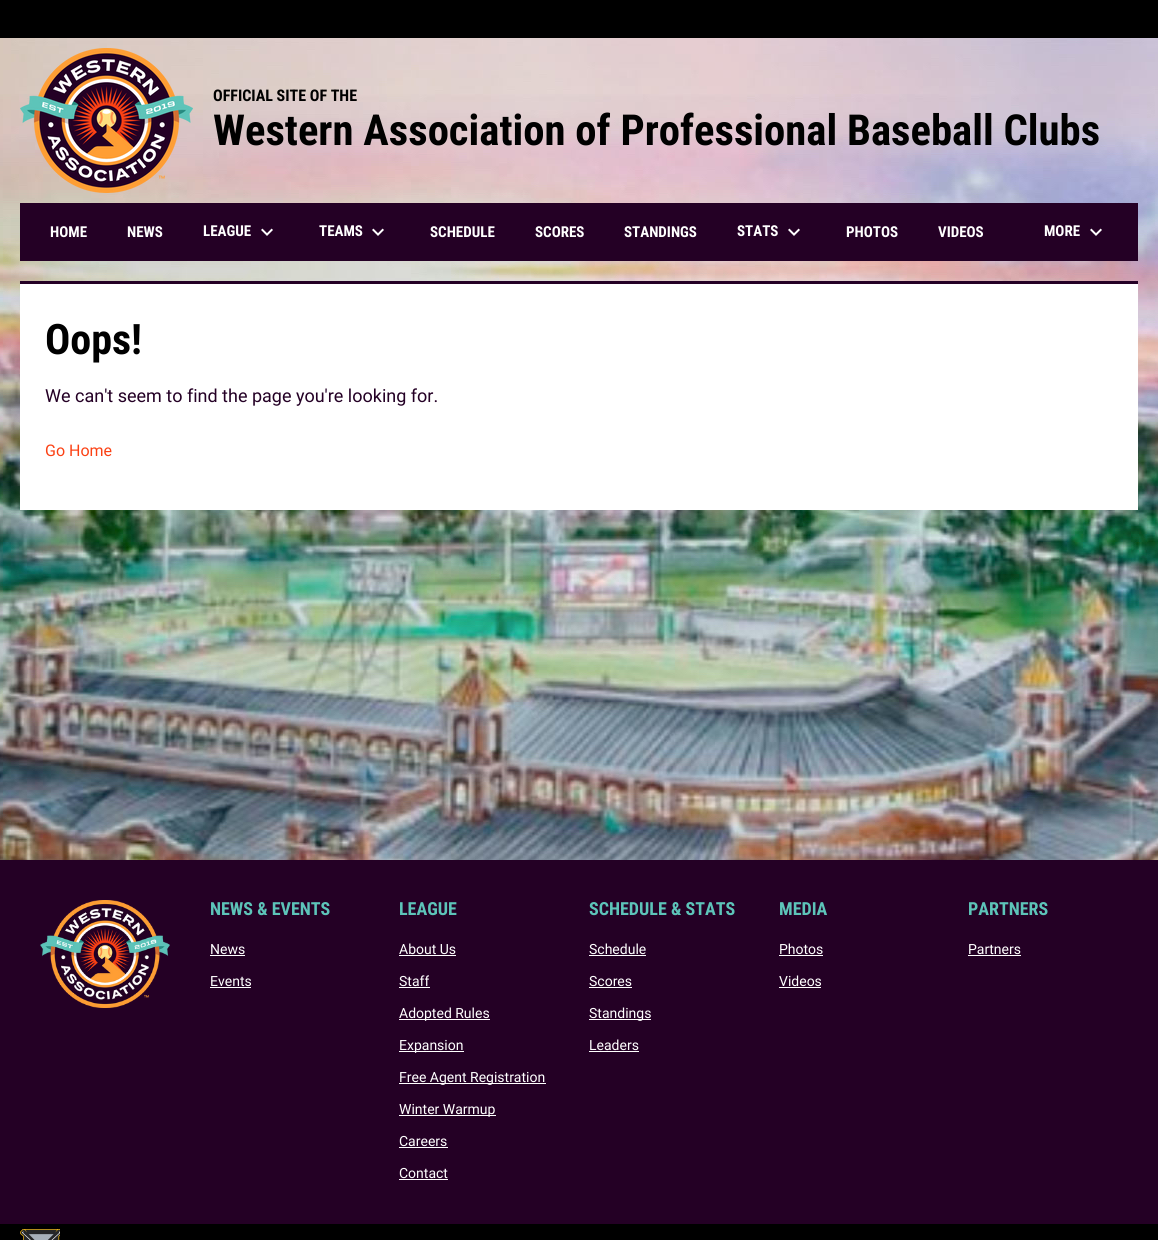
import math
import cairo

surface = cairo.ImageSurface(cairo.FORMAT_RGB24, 1158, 1240)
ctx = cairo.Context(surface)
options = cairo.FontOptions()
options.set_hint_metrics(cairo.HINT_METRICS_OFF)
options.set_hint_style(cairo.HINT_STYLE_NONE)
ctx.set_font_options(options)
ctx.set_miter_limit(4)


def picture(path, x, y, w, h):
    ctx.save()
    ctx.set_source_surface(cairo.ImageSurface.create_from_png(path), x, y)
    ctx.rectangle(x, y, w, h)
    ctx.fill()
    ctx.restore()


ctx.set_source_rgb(1, 1, 1)
ctx.paint()
ctx.set_source_rgb(0, 0, 0)
ctx.rectangle(0, 0, 1158, 38)
ctx.fill()
picture("img1.png", 0, 38, 1158, 822)
picture("img2.png", 20, 48, 173, 145)
ctx.select_font_face("Roboto Condensed", cairo.FONT_SLANT_NORMAL, cairo.FONT_WEIGHT_BOLD)
ctx.set_font_size(16)
ctx.move_to(213, 101)
ctx.show_text("OFFICIAL SITE OF THE")
ctx.set_font_size(42.7)
ctx.move_to(213, 145)
ctx.show_text("Western Association of Professional Baseball Clubs")
ctx.set_source_rgb(0.141, 0, 0.145)
ctx.rectangle(20, 203, 1118, 58)
ctx.fill()
ctx.set_font_size(15)
ctx.set_source_rgb(1, 1, 1)
ctx.move_to(50, 237)
ctx.show_text("HOME")
ctx.move_to(127, 237)
ctx.show_text("NEWS")
ctx.move_to(203, 236)
ctx.show_text("LEAGUE")
picture("img3.png", 261, 228, 12, 8)
ctx.move_to(319, 236)
ctx.show_text("TEAMS")
picture("img3.png", 372, 228, 12, 8)
ctx.move_to(430, 237)
ctx.show_text("SCHEDULE")
ctx.move_to(535, 237)
ctx.show_text("SCORES")
ctx.move_to(624, 237)
ctx.show_text("STANDINGS")
ctx.move_to(737, 236)
ctx.show_text("STATS")
picture("img3.png", 788, 228, 12, 8)
ctx.move_to(846, 237)
ctx.show_text("PHOTOS")
ctx.move_to(938, 237)
ctx.show_text("VIDEOS")
ctx.move_to(1044, 236)
ctx.show_text("MORE")
picture("img3.png", 1090, 228, 12, 8)
ctx.rectangle(20, 284, 1118, 226)
ctx.fill()
ctx.set_source_rgb(0.141, 0, 0.145)
ctx.rectangle(20, 281, 1118, 3)
ctx.fill()
ctx.set_font_size(42)
ctx.set_source_rgb(0, 0, 0)
ctx.move_to(45, 354)
ctx.show_text("Oops!")
ctx.select_font_face("Roboto")
ctx.set_font_size(18)
ctx.set_source_rgb(0.141, 0, 0.145)
ctx.move_to(45, 402)
ctx.show_text("We can't seem to find the page you're looking for.")
ctx.set_font_size(16)
ctx.set_source_rgb(0.984, 0.255, 0.082)
ctx.move_to(45, 456)
ctx.show_text("Go Home")
ctx.set_source_rgb(0.141, 0, 0.145)
ctx.rectangle(0, 860, 1158, 364)
ctx.fill()
picture("img4.png", 40, 900, 130, 108)
ctx.select_font_face("Roboto Condensed", cairo.FONT_SLANT_NORMAL, cairo.FONT_WEIGHT_BOLD)
ctx.set_font_size(18)
ctx.set_source_rgb(0.365, 0.769, 0.725)
ctx.move_to(210, 915)
ctx.show_text("NEWS & EVENTS")
ctx.select_font_face("Roboto")
ctx.set_font_size(14)
ctx.set_source_rgb(1, 1, 1)
ctx.move_to(210, 954)
ctx.show_text("News")
ctx.rectangle(210, 955, 35, 1)
ctx.fill()
ctx.move_to(210, 986)
ctx.show_text("Events")
ctx.rectangle(210, 987, 41, 1)
ctx.fill()
ctx.select_font_face("Roboto Condensed", cairo.FONT_SLANT_NORMAL, cairo.FONT_WEIGHT_BOLD)
ctx.set_font_size(18)
ctx.set_source_rgb(0.365, 0.769, 0.725)
ctx.move_to(399, 915)
ctx.show_text("LEAGUE")
ctx.select_font_face("Roboto")
ctx.set_font_size(14)
ctx.set_source_rgb(1, 1, 1)
ctx.move_to(399, 954)
ctx.show_text("About Us")
ctx.rectangle(399, 955, 57, 1)
ctx.fill()
ctx.move_to(399, 986)
ctx.show_text("Staff")
ctx.rectangle(399, 987, 31, 1)
ctx.fill()
ctx.rectangle(399, 1019, 91, 1)
ctx.fill()
ctx.move_to(399, 1018)
ctx.show_text("Adopted Rules")
ctx.rectangle(399, 1051, 65, 1)
ctx.fill()
ctx.move_to(399, 1050)
ctx.show_text("Expansion")
ctx.rectangle(399, 1083, 147, 1)
ctx.fill()
ctx.move_to(399, 1082)
ctx.show_text("Free Agent Registration")
ctx.rectangle(399, 1115, 97, 1)
ctx.fill()
ctx.move_to(399, 1114)
ctx.show_text("Winter Warmup")
ctx.move_to(399, 1146)
ctx.show_text("Careers")
ctx.rectangle(399, 1147, 49, 1)
ctx.fill()
ctx.move_to(399, 1178)
ctx.show_text("Contact")
ctx.rectangle(399, 1179, 49, 1)
ctx.fill()
ctx.select_font_face("Roboto Condensed", cairo.FONT_SLANT_NORMAL, cairo.FONT_WEIGHT_BOLD)
ctx.set_font_size(18)
ctx.set_source_rgb(0.365, 0.769, 0.725)
ctx.move_to(589, 915)
ctx.show_text("SCHEDULE & STATS")
ctx.select_font_face("Roboto")
ctx.set_font_size(14)
ctx.set_source_rgb(1, 1, 1)
ctx.move_to(589, 954)
ctx.show_text("Schedule")
ctx.rectangle(589, 955, 57, 1)
ctx.fill()
ctx.move_to(589, 986)
ctx.show_text("Scores")
ctx.rectangle(589, 987, 43, 1)
ctx.fill()
ctx.rectangle(589, 1019, 62, 1)
ctx.fill()
ctx.move_to(589, 1018)
ctx.show_text("Standings")
ctx.move_to(589, 1050)
ctx.show_text("Leaders")
ctx.rectangle(589, 1051, 50, 1)
ctx.fill()
ctx.select_font_face("Roboto Condensed", cairo.FONT_SLANT_NORMAL, cairo.FONT_WEIGHT_BOLD)
ctx.set_font_size(18)
ctx.set_source_rgb(0.365, 0.769, 0.725)
ctx.move_to(779, 915)
ctx.show_text("MEDIA")
ctx.select_font_face("Roboto")
ctx.set_font_size(14)
ctx.set_source_rgb(1, 1, 1)
ctx.move_to(779, 954)
ctx.show_text("Photos")
ctx.rectangle(779, 955, 44, 1)
ctx.fill()
ctx.move_to(779, 986)
ctx.show_text("Videos")
ctx.rectangle(779, 987, 42, 1)
ctx.fill()
ctx.select_font_face("Roboto Condensed", cairo.FONT_SLANT_NORMAL, cairo.FONT_WEIGHT_BOLD)
ctx.set_font_size(18)
ctx.set_source_rgb(0.365, 0.769, 0.725)
ctx.move_to(968, 915)
ctx.show_text("PARTNERS")
ctx.select_font_face("Roboto")
ctx.set_font_size(14)
ctx.set_source_rgb(1, 1, 1)
ctx.move_to(968, 954)
ctx.show_text("Partners")
ctx.rectangle(968, 955, 53, 1)
ctx.fill()
ctx.set_source_rgb(0, 0, 0)
ctx.rectangle(0, 1224, 1158, 16)
ctx.fill()
picture("img5.png", 20, 1229, 40, 11)
surface.write_to_png("page.png")
